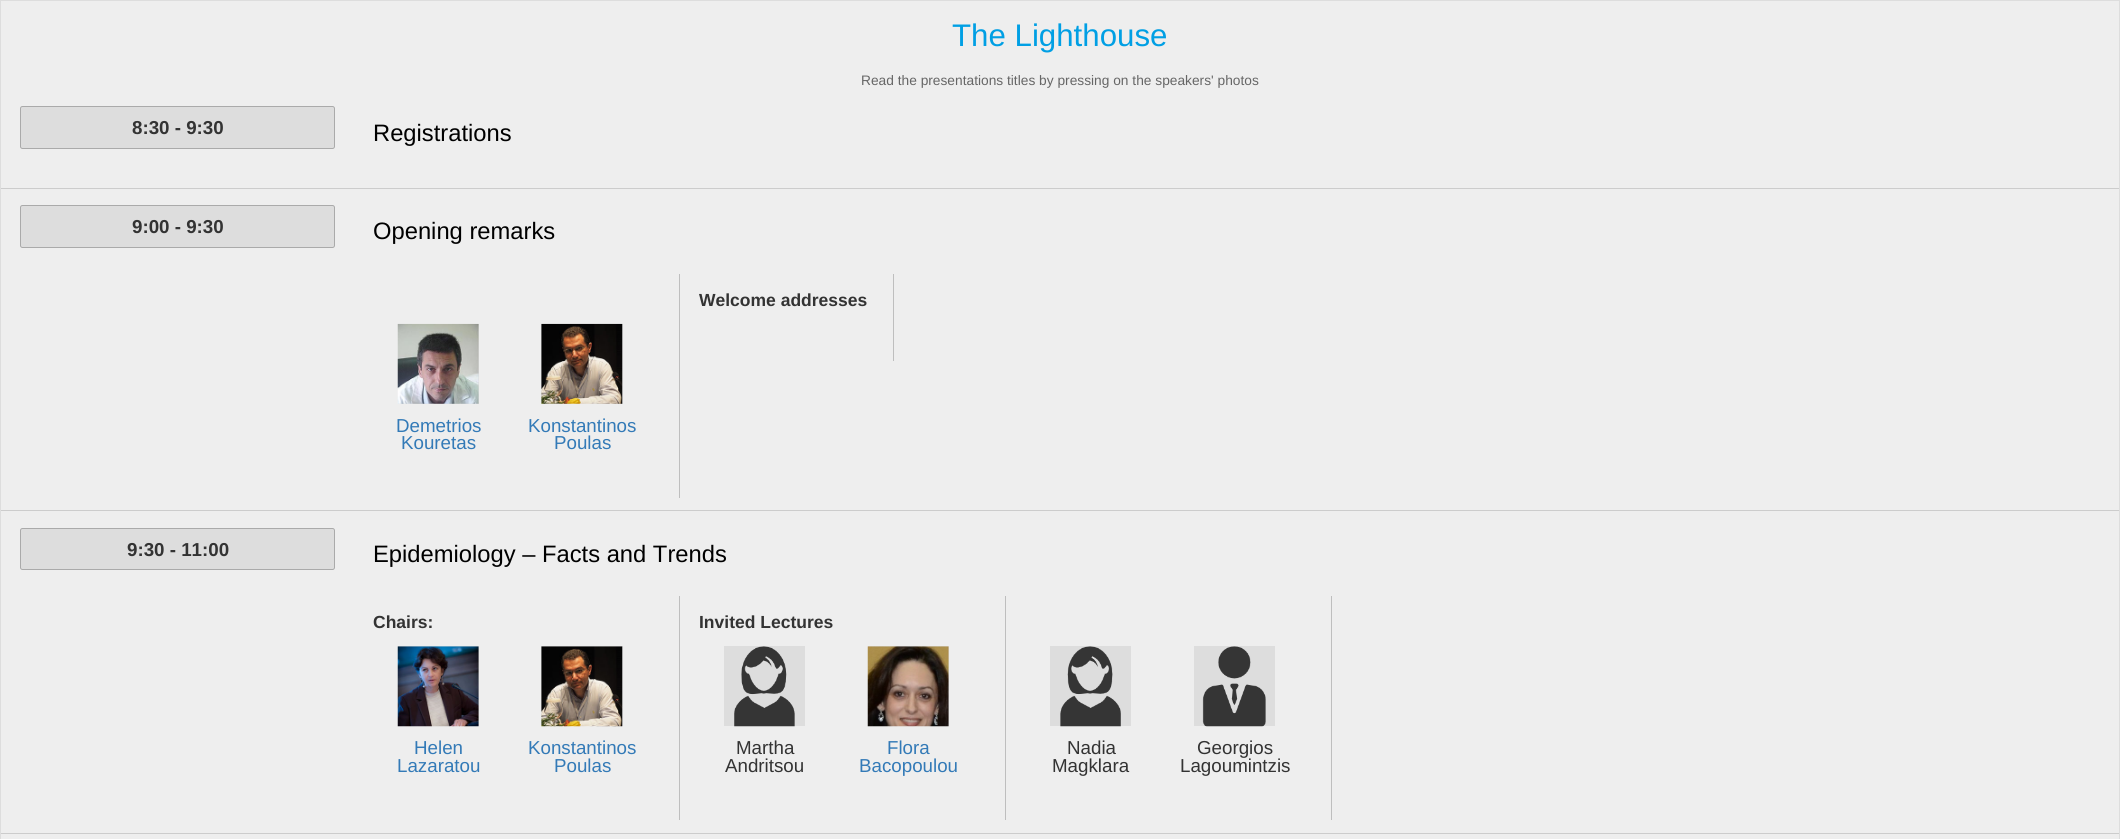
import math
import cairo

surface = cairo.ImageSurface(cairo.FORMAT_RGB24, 2120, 839)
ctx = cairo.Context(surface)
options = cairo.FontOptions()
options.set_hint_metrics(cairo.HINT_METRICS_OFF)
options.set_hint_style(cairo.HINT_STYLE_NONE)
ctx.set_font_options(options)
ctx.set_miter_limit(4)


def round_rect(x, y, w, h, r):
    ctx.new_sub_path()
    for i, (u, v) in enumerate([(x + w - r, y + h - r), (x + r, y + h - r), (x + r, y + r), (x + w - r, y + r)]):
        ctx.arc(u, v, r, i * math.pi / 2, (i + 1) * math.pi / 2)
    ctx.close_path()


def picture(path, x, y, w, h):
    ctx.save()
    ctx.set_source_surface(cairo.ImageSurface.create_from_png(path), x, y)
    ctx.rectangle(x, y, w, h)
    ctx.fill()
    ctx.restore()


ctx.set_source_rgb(0.933, 0.933, 0.933)
ctx.paint()
ctx.rectangle(0.5, 0.5, 2119, 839)
ctx.set_source_rgb(0.867, 0.867, 0.867)
ctx.set_line_width(1)
ctx.stroke()
ctx.select_font_face("Liberation Sans")
ctx.set_font_size(31.25)
ctx.set_source_rgb(0, 0.624, 0.894)
ctx.move_to(952, 46)
ctx.show_text("The Lighthouse")
ctx.set_font_size(13.75)
ctx.set_source_rgb(0.4, 0.4, 0.4)
ctx.move_to(861, 85)
ctx.show_text("Read the presentations titles by pressing on the speakers' photos")
ctx.set_source_rgb(0.8, 0.8, 0.8)
ctx.rectangle(1, 188, 2118, 1)
ctx.fill()
ctx.set_source_rgb(0.867, 0.867, 0.867)
round_rect(20.5, 106.5, 314, 42, 2)
ctx.fill_preserve()
ctx.set_source_rgb(0.667, 0.667, 0.667)
ctx.stroke()
ctx.select_font_face("Liberation Sans", cairo.FONT_SLANT_NORMAL, cairo.FONT_WEIGHT_BOLD)
ctx.set_font_size(18.75)
ctx.set_source_rgb(0.2, 0.2, 0.2)
ctx.move_to(132, 134)
ctx.show_text("8:30 - 9:30")
ctx.select_font_face("Liberation Sans")
ctx.set_font_size(23.75)
ctx.set_source_rgb(0, 0, 0)
ctx.move_to(373, 141)
ctx.show_text("Registrations")
ctx.set_source_rgb(0.8, 0.8, 0.8)
ctx.rectangle(1, 510, 2118, 1)
ctx.fill()
ctx.set_source_rgb(0.867, 0.867, 0.867)
round_rect(20.5, 205.5, 314, 42, 2)
ctx.fill_preserve()
ctx.set_source_rgb(0.667, 0.667, 0.667)
ctx.stroke()
ctx.select_font_face("Liberation Sans", cairo.FONT_SLANT_NORMAL, cairo.FONT_WEIGHT_BOLD)
ctx.set_font_size(18.75)
ctx.set_source_rgb(0.2, 0.2, 0.2)
ctx.move_to(132, 233)
ctx.show_text("9:00 - 9:30")
ctx.select_font_face("Liberation Sans")
ctx.set_font_size(23.75)
ctx.set_source_rgb(0, 0, 0)
ctx.move_to(373, 239)
ctx.show_text("Opening remarks")
ctx.set_source_rgb(0.745, 0.745, 0.745)
ctx.rectangle(893, 274, 1, 87)
ctx.fill()
ctx.select_font_face("Liberation Sans", cairo.FONT_SLANT_NORMAL, cairo.FONT_WEIGHT_BOLD)
ctx.set_font_size(17.5)
ctx.set_source_rgb(0.2, 0.2, 0.2)
ctx.move_to(699, 306)
ctx.show_text("Welcome addresses")
ctx.set_source_rgb(0.745, 0.745, 0.745)
ctx.rectangle(679, 274, 1, 224)
ctx.fill()
ctx.set_source_rgb(0.867, 0.867, 0.867)
ctx.rectangle(398, 324, 81, 80)
ctx.fill()
picture("img1.png", 397, 323, 82, 81)
ctx.select_font_face("Liberation Sans")
ctx.set_font_size(18.75)
ctx.set_source_rgb(0.2, 0.478, 0.718)
ctx.move_to(396, 432)
ctx.show_text("Demetrios")
ctx.move_to(401, 449)
ctx.show_text("Kouretas")
ctx.set_source_rgb(0.867, 0.867, 0.867)
ctx.rectangle(541, 324, 82, 80)
ctx.fill()
picture("img2.png", 541, 323, 82, 81)
ctx.set_source_rgb(0.2, 0.478, 0.718)
ctx.move_to(528, 432)
ctx.show_text("Konstantinos")
ctx.move_to(554, 449)
ctx.show_text("Poulas")
ctx.set_source_rgb(0.8, 0.8, 0.8)
ctx.rectangle(1, 833, 2118, 1)
ctx.fill()
ctx.set_source_rgb(0.867, 0.867, 0.867)
round_rect(20.5, 528.5, 314, 41, 2)
ctx.fill_preserve()
ctx.set_source_rgb(0.667, 0.667, 0.667)
ctx.stroke()
ctx.select_font_face("Liberation Sans", cairo.FONT_SLANT_NORMAL, cairo.FONT_WEIGHT_BOLD)
ctx.set_source_rgb(0.2, 0.2, 0.2)
ctx.move_to(127, 556)
ctx.show_text("9:30 - 11:00")
ctx.select_font_face("Liberation Sans")
ctx.set_font_size(23.75)
ctx.set_source_rgb(0, 0, 0)
ctx.move_to(373, 562)
ctx.show_text("Epidemiology – Facts and Trends")
ctx.set_source_rgb(0.745, 0.745, 0.745)
ctx.rectangle(679, 596, 1, 224)
ctx.fill()
ctx.select_font_face("Liberation Sans", cairo.FONT_SLANT_NORMAL, cairo.FONT_WEIGHT_BOLD)
ctx.set_font_size(17.5)
ctx.set_source_rgb(0.2, 0.2, 0.2)
ctx.move_to(373, 628)
ctx.show_text("Chairs:")
ctx.set_source_rgb(0.867, 0.867, 0.867)
ctx.rectangle(398, 646, 81, 80)
ctx.fill()
picture("img3.png", 397, 646, 82, 81)
ctx.select_font_face("Liberation Sans")
ctx.set_font_size(18.75)
ctx.set_source_rgb(0.2, 0.478, 0.718)
ctx.move_to(414, 754)
ctx.show_text("Helen")
ctx.move_to(397, 772)
ctx.show_text("Lazaratou")
ctx.set_source_rgb(0.867, 0.867, 0.867)
ctx.rectangle(541, 646, 82, 80)
ctx.fill()
picture("img4.png", 541, 646, 82, 81)
ctx.set_source_rgb(0.2, 0.478, 0.718)
ctx.move_to(528, 754)
ctx.show_text("Konstantinos")
ctx.move_to(554, 772)
ctx.show_text("Poulas")
ctx.set_source_rgb(0.745, 0.745, 0.745)
ctx.rectangle(1005, 596, 1, 224)
ctx.fill()
ctx.select_font_face("Liberation Sans", cairo.FONT_SLANT_NORMAL, cairo.FONT_WEIGHT_BOLD)
ctx.set_font_size(17.5)
ctx.set_source_rgb(0.2, 0.2, 0.2)
ctx.move_to(699, 628)
ctx.show_text("Invited Lectures")
ctx.set_source_rgb(0.867, 0.867, 0.867)
ctx.rectangle(724, 646, 81, 80)
ctx.fill()
picture("img5.png", 734, 646, 61, 81)
ctx.select_font_face("Liberation Sans")
ctx.set_font_size(18.75)
ctx.set_source_rgb(0.2, 0.2, 0.2)
ctx.move_to(736, 754)
ctx.show_text("Martha")
ctx.move_to(725, 772)
ctx.show_text("Andritsou")
ctx.set_source_rgb(0.867, 0.867, 0.867)
ctx.rectangle(868, 646, 81, 80)
ctx.fill()
picture("img6.png", 867, 646, 82, 81)
ctx.set_source_rgb(0.2, 0.478, 0.718)
ctx.move_to(887, 754)
ctx.show_text("Flora")
ctx.move_to(859, 772)
ctx.show_text("Bacopoulou")
ctx.set_source_rgb(0.745, 0.745, 0.745)
ctx.rectangle(1331, 596, 1, 224)
ctx.fill()
ctx.set_source_rgb(0.867, 0.867, 0.867)
ctx.rectangle(1050, 646, 81, 80)
ctx.fill()
picture("img7.png", 1060, 646, 61, 81)
ctx.set_source_rgb(0.2, 0.2, 0.2)
ctx.move_to(1067, 754)
ctx.show_text("Nadia")
ctx.move_to(1052, 772)
ctx.show_text("Magklara")
ctx.set_source_rgb(0.867, 0.867, 0.867)
ctx.rectangle(1194, 646, 81, 80)
ctx.fill()
picture("img8.png", 1202, 646, 64, 81)
ctx.set_source_rgb(0.2, 0.2, 0.2)
ctx.move_to(1197, 754)
ctx.show_text("Georgios")
ctx.move_to(1180, 772)
ctx.show_text("Lagoumintzis")
surface.write_to_png("page.png")
